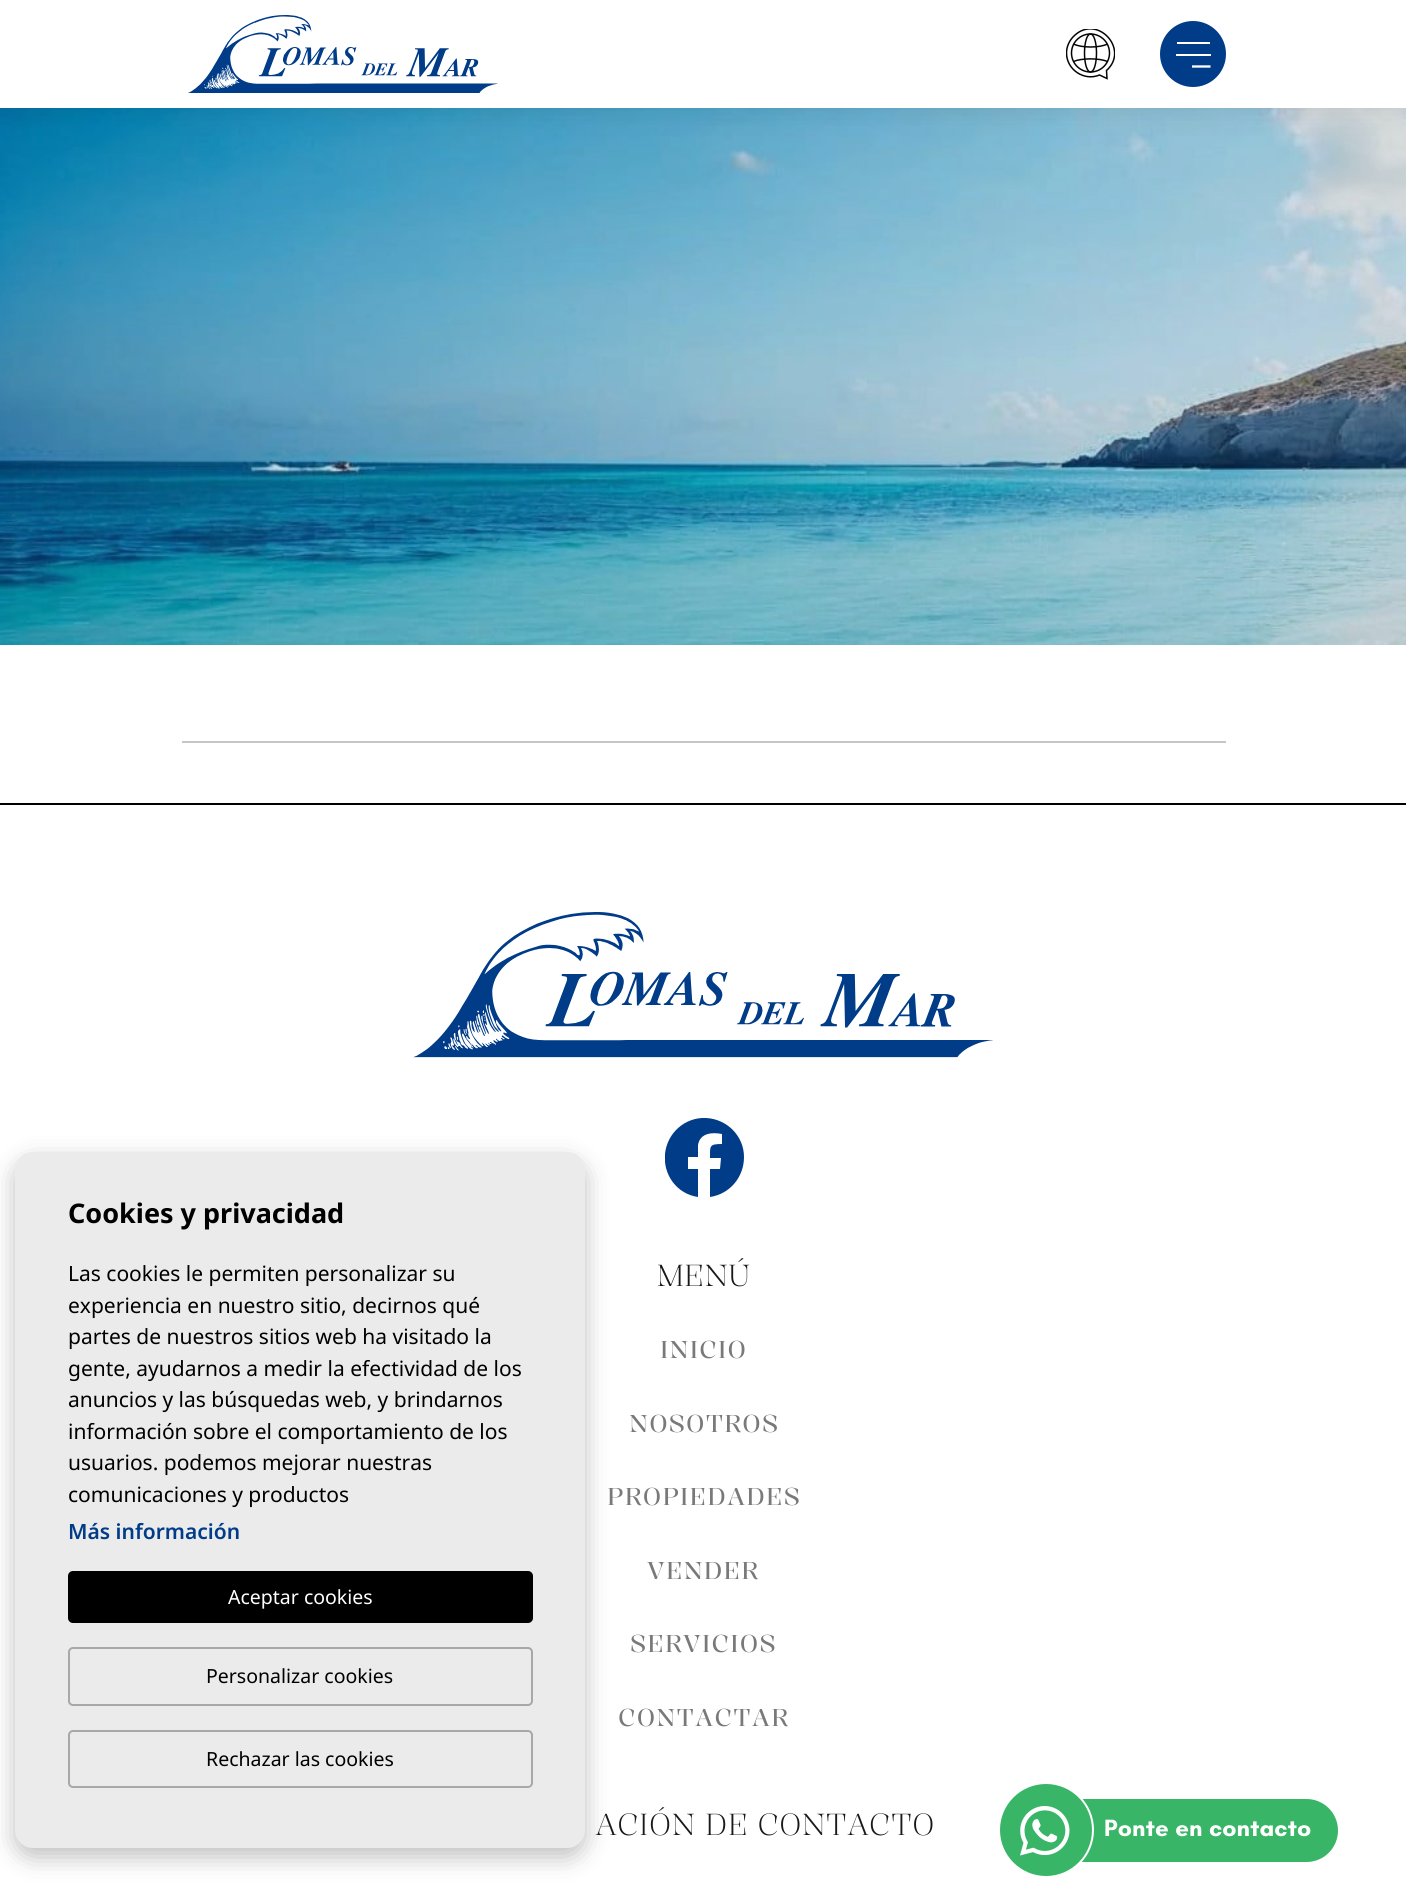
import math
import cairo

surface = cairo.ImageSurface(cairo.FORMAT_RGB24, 1406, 1893)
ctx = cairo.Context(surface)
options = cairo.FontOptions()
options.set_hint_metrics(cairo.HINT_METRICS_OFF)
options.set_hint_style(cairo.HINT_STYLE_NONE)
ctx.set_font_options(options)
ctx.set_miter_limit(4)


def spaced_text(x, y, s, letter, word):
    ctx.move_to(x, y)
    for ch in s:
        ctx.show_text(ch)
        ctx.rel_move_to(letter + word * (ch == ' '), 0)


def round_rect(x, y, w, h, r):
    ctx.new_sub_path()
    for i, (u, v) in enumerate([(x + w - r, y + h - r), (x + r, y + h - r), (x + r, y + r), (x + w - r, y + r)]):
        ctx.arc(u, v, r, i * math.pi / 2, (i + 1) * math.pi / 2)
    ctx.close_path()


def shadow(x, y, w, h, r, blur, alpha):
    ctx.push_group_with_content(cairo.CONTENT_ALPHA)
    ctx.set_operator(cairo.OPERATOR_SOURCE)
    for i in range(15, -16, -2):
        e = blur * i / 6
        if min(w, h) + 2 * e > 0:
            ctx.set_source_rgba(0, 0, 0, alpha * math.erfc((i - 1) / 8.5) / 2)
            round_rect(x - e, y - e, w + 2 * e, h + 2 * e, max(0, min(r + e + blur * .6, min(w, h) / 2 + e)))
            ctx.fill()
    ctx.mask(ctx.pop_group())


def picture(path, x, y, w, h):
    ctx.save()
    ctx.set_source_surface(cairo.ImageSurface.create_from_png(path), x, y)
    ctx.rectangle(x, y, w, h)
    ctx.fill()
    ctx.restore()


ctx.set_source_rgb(1, 1, 1)
ctx.paint()
picture("img2.png", 0, 108, 1406, 537)
ctx.set_source_rgb(0, 0, 0)
shadow(0, 0, 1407, 108, 0, 15, 0.11)
ctx.set_source_rgb(1, 1, 1)
ctx.rectangle(0, 0, 1406, 108)
ctx.fill()
picture("img1.png", 188, 15, 310, 78)
ctx.arc(1090.5, 53, 19, 0, 2 * math.pi)
ctx.set_source_rgb(0.016, 0.016, 0.02)
ctx.set_line_width(1.5)
ctx.stroke()
ctx.new_path()
ctx.move_to(1090.5, 34)
ctx.curve_to(1094, 34, 1096.5, 42.5, 1096.5, 53)
ctx.curve_to(1096.5, 63.5, 1094, 72, 1090.5, 72)
ctx.curve_to(1087, 72, 1084.5, 63.5, 1084.5, 53)
ctx.curve_to(1084.5, 42.5, 1087, 34, 1090.5, 34)
ctx.close_path()
ctx.stroke()
ctx.new_path()
ctx.move_to(1107.5, 44)
ctx.curve_to(1099.5, 48, 1081.5, 48, 1073.5, 44)
ctx.move_to(1073.5, 61.5)
ctx.curve_to(1081.5, 58, 1099.5, 58, 1107.5, 61.5)
ctx.stroke()
ctx.save()
ctx.rectangle(1065, 29, 51, 51)
ctx.clip()
ctx.new_path()
ctx.move_to(1066, 28.5)
ctx.line_to(1115, 28.5)
ctx.line_to(1115, 79.5)
ctx.line_to(1066, 79.5)
ctx.close_path()
ctx.clip()
ctx.new_path()
ctx.move_to(1066.5, 53)
ctx.curve_to(1066.5, 69.5, 1084, 81.5, 1099.5, 75)
ctx.line_to(1107, 78.5)
ctx.line_to(1106.5, 70.5)
ctx.curve_to(1130, 49.5, 1097.5, 14, 1074.5, 35.5)
ctx.curve_to(1069.5, 40, 1066.5, 46.5, 1066.5, 53)
ctx.close_path()
ctx.stroke()
ctx.restore()
ctx.set_source_rgb(0, 0.235, 0.533)
ctx.arc(1193, 54, 33, 0, 2 * math.pi)
ctx.fill()
ctx.set_source_rgb(1, 1, 1)
ctx.rectangle(1177, 42, 33, 2)
ctx.fill()
ctx.rectangle(1176, 54, 35, 2)
ctx.fill()
ctx.new_path()
ctx.move_to(1192, 66.5)
ctx.line_to(1210.5, 66.5)
ctx.set_line_width(2.3)
ctx.stroke()
ctx.set_source_rgb(0.773, 0.776, 0.776)
ctx.rectangle(182, 741, 1044, 2)
ctx.fill()
ctx.set_source_rgb(0, 0, 0)
shadow(15, 1161, 570, 696, 18, 12, 0.25)
ctx.set_source_rgb(0.918, 0.918, 0.918)
round_rect(15, 1152, 570, 696, 18)
ctx.fill()
ctx.select_font_face("Noto Sans", cairo.FONT_SLANT_NORMAL, cairo.FONT_WEIGHT_BOLD)
ctx.set_font_size(27)
ctx.set_source_rgb(0, 0, 0)
ctx.move_to(68, 1223)
ctx.show_text("Cookies y privacidad")
ctx.select_font_face("Noto Sans")
ctx.set_font_size(21)
ctx.move_to(68, 1281)
ctx.show_text("Las cookies le permiten personalizar su")
ctx.move_to(68, 1313)
ctx.show_text("experiencia en nuestro sitio, decirnos qué")
ctx.move_to(68, 1344)
ctx.show_text("partes de nuestros sitios web ha visitado la")
ctx.move_to(68, 1376)
ctx.show_text("gente, ayudarnos a medir la efectividad de los")
ctx.move_to(68, 1407)
ctx.show_text("anuncios y las búsquedas web, y brindarnos")
ctx.move_to(68, 1439)
ctx.show_text("información sobre el comportamiento de los")
ctx.move_to(68, 1470)
ctx.show_text("usuarios. podemos mejorar nuestras")
ctx.move_to(68, 1502)
ctx.show_text("comunicaciones y productos")
ctx.select_font_face("Noto Sans SemiBold")
ctx.set_source_rgb(0, 0.235, 0.533)
ctx.move_to(68, 1539)
ctx.show_text("Más información")
ctx.set_source_rgb(0, 0, 0)
round_rect(68, 1571, 465, 52, 5)
ctx.fill()
ctx.select_font_face("Noto Sans")
ctx.set_font_size(19.5)
ctx.set_source_rgb(1, 1, 1)
ctx.move_to(228, 1604)
ctx.show_text("Aceptar cookies")
round_rect(69, 1648, 463, 57, 4)
ctx.set_source_rgb(0.659, 0.659, 0.659)
ctx.set_line_width(2)
ctx.stroke()
ctx.set_source_rgb(0, 0, 0)
ctx.move_to(206, 1683)
ctx.show_text("Personalizar cookies")
round_rect(69, 1731, 463, 56, 4)
ctx.set_source_rgb(0.659, 0.659, 0.659)
ctx.stroke()
ctx.set_source_rgb(0, 0, 0)
ctx.move_to(206, 1766)
ctx.show_text("Rechazar las cookies")
ctx.rectangle(0, 803, 1406, 2)
ctx.fill()
picture("img3.png", 413, 912, 580, 146)
ctx.save()
ctx.rectangle(665, 1118, 79, 79)
ctx.clip()
ctx.set_source_rgb(0, 0.235, 0.533)
ctx.new_path()
ctx.move_to(744, 1157)
ctx.curve_to(744, 1136, 727, 1119, 706, 1118)
ctx.curve_to(685, 1117, 667, 1133, 665, 1154)
ctx.curve_to(663, 1175, 677, 1194, 698, 1197)
ctx.line_to(698, 1169)
ctx.line_to(688, 1169)
ctx.line_to(688, 1157)
ctx.line_to(698, 1157)
ctx.line_to(698, 1145)
ctx.curve_to(700, 1133, 712, 1132, 722, 1134)
ctx.line_to(722, 1144)
ctx.curve_to(709, 1144, 710, 1146, 710, 1158)
ctx.line_to(721, 1158)
ctx.line_to(720, 1169)
ctx.line_to(710, 1169)
ctx.line_to(710, 1197)
ctx.curve_to(730, 1194, 744, 1177, 744, 1157)
ctx.close_path()
ctx.fill()
ctx.restore()
ctx.select_font_face("Kalnia Light")
ctx.set_font_size(30)
ctx.set_source_rgb(0.094, 0.102, 0.098)
ctx.move_to(656, 1286)
ctx.show_text("MENÚ")
ctx.select_font_face("Kalnia")
ctx.set_font_size(24)
ctx.set_source_rgb(0.475, 0.475, 0.475)
spaced_text(660, 1358, "INICIO", 1.25, 0)
spaced_text(629, 1432, "NOSOTROS", 1.25, 0)
spaced_text(607, 1505, "PROPIEDADES", 1.25, 0)
spaced_text(647, 1579, "VENDER", 1.25, 0)
spaced_text(630, 1652, "SERVICIOS", 1.25, 0)
spaced_text(618, 1726, "CONTACTAR", 1.25, 0)
ctx.select_font_face("Kalnia Light")
ctx.set_font_size(30)
ctx.set_source_rgb(0.094, 0.102, 0.098)
ctx.move_to(595, 1835)
ctx.show_text("ACIÓN DE CONTACTO")
ctx.set_source_rgb(0.22, 0.71, 0.404)
round_rect(1040, 1799, 298, 63, 31.5)
ctx.fill()
ctx.arc(1046, 1830, 47, 0, 2 * math.pi)
ctx.fill_preserve()
ctx.set_source_rgb(1, 1, 1)
ctx.stroke()
picture("img4.png", 1020, 1806, 50, 50)
ctx.select_font_face("Teachers", cairo.FONT_SLANT_NORMAL, cairo.FONT_WEIGHT_BOLD)
ctx.set_font_size(24)
ctx.move_to(1104, 1836)
ctx.show_text("Ponte en contacto")
surface.write_to_png("page.png")
